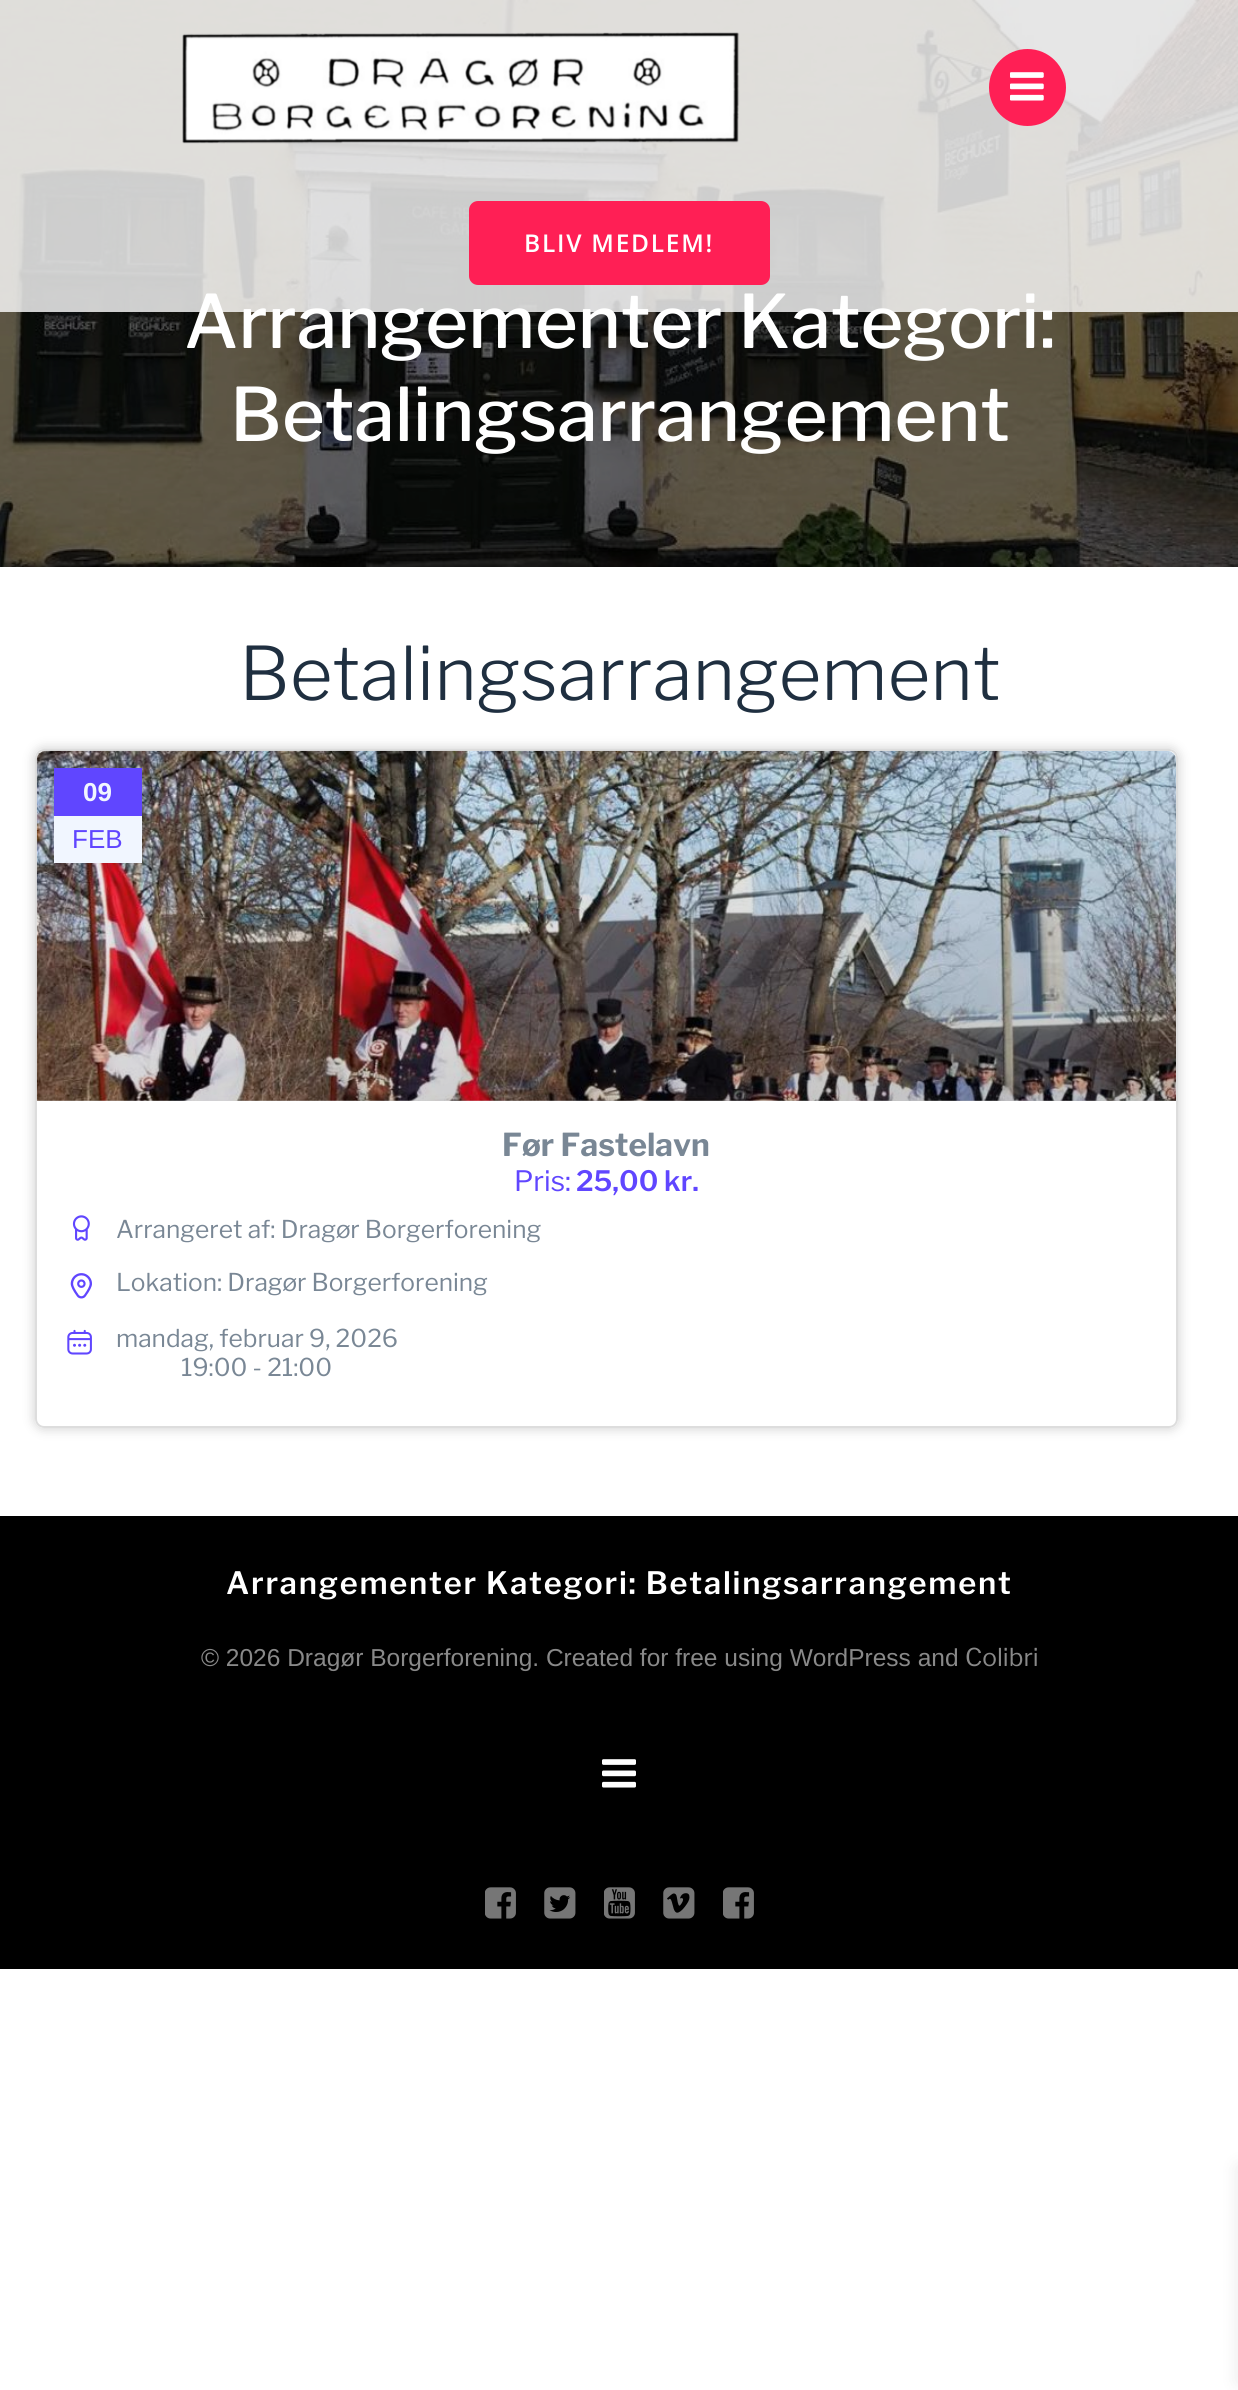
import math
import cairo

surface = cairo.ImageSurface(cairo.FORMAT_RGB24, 1238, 2390)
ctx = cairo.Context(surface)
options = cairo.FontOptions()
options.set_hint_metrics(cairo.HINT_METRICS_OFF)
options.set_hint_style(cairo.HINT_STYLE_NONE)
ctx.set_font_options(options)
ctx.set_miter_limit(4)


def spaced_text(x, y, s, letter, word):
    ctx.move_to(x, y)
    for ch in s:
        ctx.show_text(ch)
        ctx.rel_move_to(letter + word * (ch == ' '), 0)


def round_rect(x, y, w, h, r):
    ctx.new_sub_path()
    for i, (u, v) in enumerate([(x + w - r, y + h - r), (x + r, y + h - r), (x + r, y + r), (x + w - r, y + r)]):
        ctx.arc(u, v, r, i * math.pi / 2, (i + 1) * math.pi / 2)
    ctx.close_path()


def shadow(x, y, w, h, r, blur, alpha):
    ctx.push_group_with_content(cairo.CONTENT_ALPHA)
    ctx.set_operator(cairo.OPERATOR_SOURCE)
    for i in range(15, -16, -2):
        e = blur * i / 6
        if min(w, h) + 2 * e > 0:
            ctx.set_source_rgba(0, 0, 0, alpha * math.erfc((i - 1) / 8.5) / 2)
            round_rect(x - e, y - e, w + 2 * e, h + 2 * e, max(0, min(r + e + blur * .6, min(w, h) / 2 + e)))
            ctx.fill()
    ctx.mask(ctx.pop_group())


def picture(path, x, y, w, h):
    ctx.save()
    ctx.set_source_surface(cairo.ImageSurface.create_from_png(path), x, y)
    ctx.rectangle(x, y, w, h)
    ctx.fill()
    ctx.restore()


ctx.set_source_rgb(1, 1, 1)
ctx.paint()
picture("img3.png", 0, 0, 1238, 567)
ctx.select_font_face("Libre Franklin Medium")
ctx.set_font_size(73.5)
ctx.set_source_rgb(1, 1, 1)
ctx.move_to(184, 348)
ctx.show_text("Arrangementer Kategori:")
ctx.set_source_rgba(1, 1, 1, 0.8)
ctx.rectangle(0, 0, 1238, 312)
ctx.fill()
picture("img1.png", 182, 32, 558, 112)
ctx.set_source_rgb(1, 0.122, 0.333)
ctx.arc(1027.5, 87.5, 38.5, 0, 2 * math.pi)
ctx.fill()
picture("img2.png", 1010, 72, 34, 29)
round_rect(471, 203, 297, 80, 7)
ctx.fill_preserve()
ctx.set_line_width(4)
ctx.stroke()
ctx.select_font_face("Open Sans SemiBold")
ctx.set_font_size(24.5)
ctx.set_source_rgb(1, 1, 1)
spaced_text(524, 252, "BLIV MEDLEM!", 1.75, 0)
ctx.select_font_face("Libre Franklin Medium")
ctx.set_font_size(73.5)
ctx.move_to(230, 441)
ctx.show_text("Betalingsarrangement")
ctx.select_font_face("Libre Franklin Light")
ctx.set_source_rgb(0.122, 0.184, 0.251)
ctx.move_to(239, 700)
ctx.show_text("Betalingsarrangement")
ctx.save()
ctx.set_fill_rule(cairo.FILL_RULE_EVEN_ODD)
ctx.new_path()
ctx.move_to(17, 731)
ctx.line_to(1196, 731)
ctx.line_to(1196, 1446)
ctx.line_to(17, 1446)
ctx.close_path()
ctx.move_to(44, 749)
ctx.line_to(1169, 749)
ctx.curve_to(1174, 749, 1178, 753, 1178, 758)
ctx.line_to(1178, 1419)
ctx.curve_to(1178, 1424, 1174, 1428, 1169, 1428)
ctx.line_to(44, 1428)
ctx.curve_to(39, 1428, 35, 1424, 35, 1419)
ctx.line_to(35, 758)
ctx.curve_to(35, 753, 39, 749, 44, 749)
ctx.close_path()
ctx.clip()
ctx.set_source_rgb(0.851, 0.851, 0.851)
shadow(33, 747, 1147, 683, 11, 5, 1)
ctx.restore()
round_rect(36, 750, 1141, 677, 8)
ctx.set_source_rgb(0.867, 0.867, 0.867)
ctx.set_line_width(2)
ctx.stroke()
picture("img4.png", 36, 750, 1140, 351)
gradient = cairo.LinearGradient(529, 664, 684, 1545)
gradient.add_color_stop_rgba(0, 0, 0, 0, 0)
gradient.add_color_stop_rgba(1, 0, 0, 0, 0.4)
ctx.set_source(gradient)
ctx.new_path()
ctx.move_to(46, 751)
ctx.line_to(1167, 751)
ctx.curve_to(1172, 751, 1176, 755, 1176, 760)
ctx.line_to(1176, 1101)
ctx.line_to(37, 1101)
ctx.line_to(37, 760)
ctx.curve_to(37, 755, 41, 751, 46, 751)
ctx.close_path()
ctx.fill()
ctx.set_source_rgb(0.376, 0.275, 1)
ctx.rectangle(54, 768, 88, 48)
ctx.fill()
ctx.select_font_face("Liberation Sans", cairo.FONT_SLANT_NORMAL, cairo.FONT_WEIGHT_BOLD)
ctx.set_font_size(26)
ctx.set_source_rgb(0.945, 0.961, 1)
ctx.move_to(83, 801)
ctx.show_text("09")
ctx.rectangle(54, 816, 88, 47)
ctx.fill()
ctx.select_font_face("Liberation Sans")
ctx.set_source_rgb(0.376, 0.275, 1)
ctx.move_to(72, 848)
ctx.show_text("FEB")
ctx.select_font_face("Libre Franklin", cairo.FONT_SLANT_NORMAL, cairo.FONT_WEIGHT_BOLD)
ctx.set_font_size(31.5)
ctx.set_source_rgb(0.475, 0.529, 0.584)
ctx.move_to(502, 1156)
ctx.show_text("Før Fastelavn")
ctx.select_font_face("Libre Franklin")
ctx.set_font_size(28)
ctx.set_source_rgb(0.376, 0.275, 1)
ctx.move_to(514, 1191)
ctx.show_text("Pris:")
ctx.select_font_face("Libre Franklin SemiBold")
ctx.move_to(576, 1191)
ctx.show_text("25,00 kr.")
picture("img5.png", 72, 1215, 18, 26)
ctx.select_font_face("Libre Franklin")
ctx.set_font_size(24.5)
ctx.set_source_rgb(0.475, 0.529, 0.584)
ctx.move_to(116, 1238)
ctx.show_text("Arrangeret af: Dragør Borgerforening")
picture("img6.png", 70, 1273, 22, 26)
ctx.move_to(116, 1291)
ctx.show_text("Lokation: Dragør Borgerforening")
picture("img7.png", 67, 1329, 25, 26)
ctx.move_to(116, 1347)
ctx.show_text("mandag, februar 9, 2026")
ctx.move_to(181, 1376)
ctx.show_text("19:00 - 21:00")
ctx.set_source_rgb(0, 0, 0)
ctx.rectangle(0, 1516, 1238, 453)
ctx.fill()
ctx.select_font_face("Libre Franklin SemiBold")
ctx.set_font_size(30.8)
ctx.set_source_rgb(1, 1, 1)
spaced_text(226, 1594, "Arrangementer Kategori: Betalingsarrangement", 1.75, 0)
ctx.select_font_face("Liberation Sans")
ctx.set_font_size(24.5)
ctx.set_source_rgb(0.537, 0.537, 0.537)
ctx.move_to(201, 1666)
ctx.show_text("© 2026 Dragør Borgerforening. Created for free using WordPress and")
ctx.select_font_face("Libre Franklin")
ctx.move_to(965, 1666)
ctx.show_text("Colibri")
picture("img8.png", 602, 1759, 34, 29)
picture("img9.png", 485, 1887, 31, 32)
picture("img10.png", 544, 1887, 32, 32)
picture("img11.png", 604, 1887, 31, 32)
picture("img12.png", 663, 1887, 32, 32)
picture("img9.png", 723, 1887, 31, 32)
ctx.set_source_rgb(0, 0, 0)
shadow(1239, 2167, 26, 215, 0, 9, 0.1)
surface.write_to_png("page.png")
